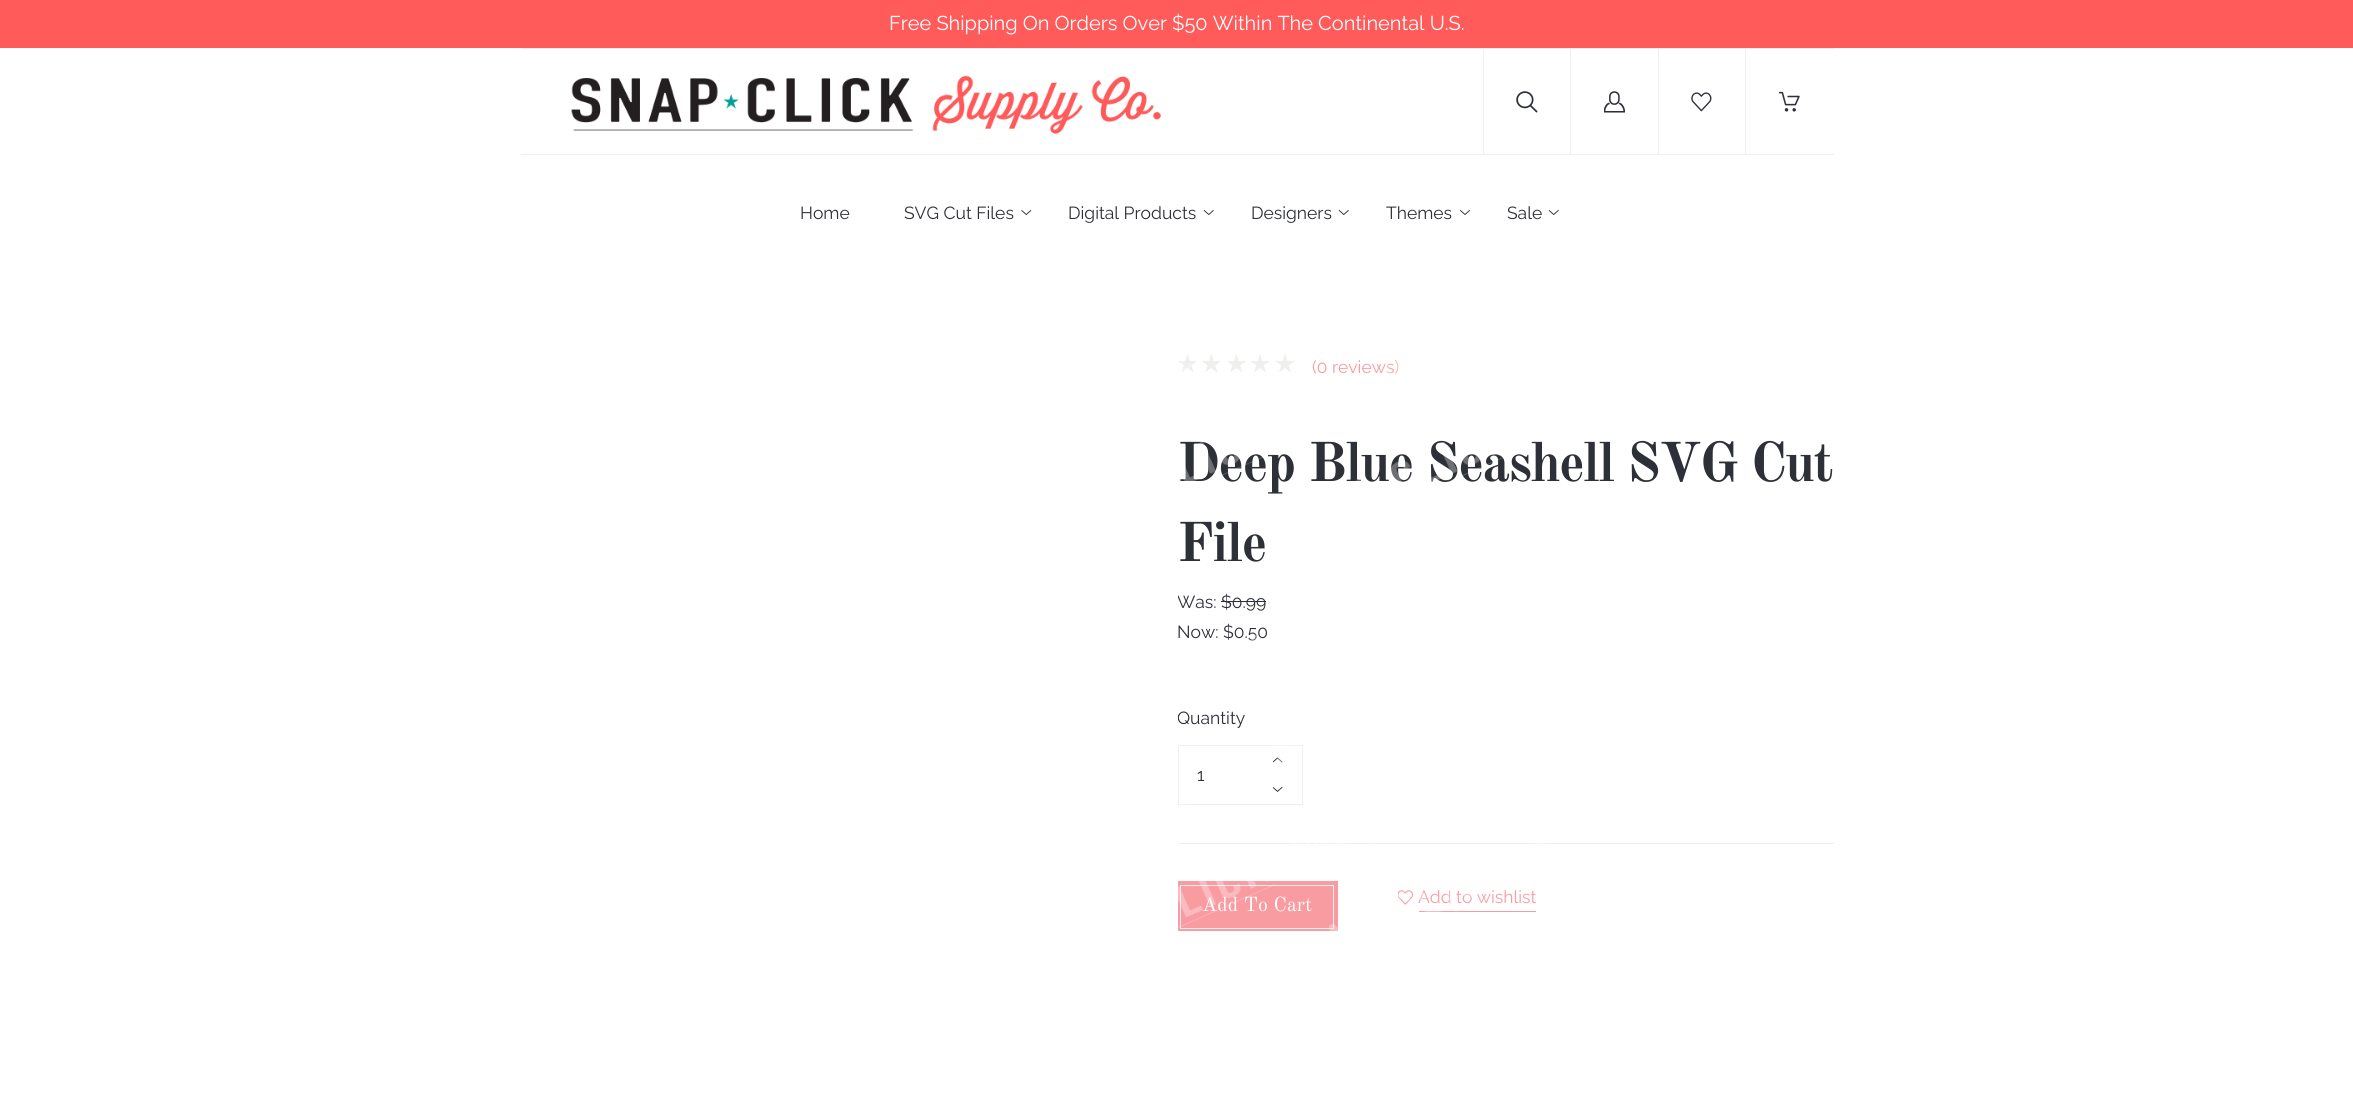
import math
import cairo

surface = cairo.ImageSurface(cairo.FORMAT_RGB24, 2353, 1117)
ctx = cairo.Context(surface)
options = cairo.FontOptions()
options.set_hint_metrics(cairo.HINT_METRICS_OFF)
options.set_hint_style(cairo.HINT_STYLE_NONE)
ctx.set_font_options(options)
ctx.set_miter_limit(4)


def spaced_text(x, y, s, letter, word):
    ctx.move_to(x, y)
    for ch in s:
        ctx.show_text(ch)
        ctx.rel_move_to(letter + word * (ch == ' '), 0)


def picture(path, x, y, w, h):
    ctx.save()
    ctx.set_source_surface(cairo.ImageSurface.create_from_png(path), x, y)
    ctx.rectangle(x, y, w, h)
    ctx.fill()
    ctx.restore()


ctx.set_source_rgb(1, 1, 1)
ctx.paint()
ctx.set_source_rgb(1, 0.357, 0.357)
ctx.rectangle(0, 0, 2353, 48)
ctx.fill()
ctx.select_font_face("Raleway")
ctx.set_font_size(20)
ctx.set_source_rgb(1, 1, 1)
ctx.move_to(889, 30)
ctx.show_text("Free Shipping On Orders Over $50 Within The Continental U.S.")
ctx.set_source_rgb(0.937, 0.937, 0.929)
ctx.rectangle(521, 48, 1313, 1)
ctx.fill()
ctx.rectangle(521, 154, 1313, 1)
ctx.fill()
ctx.rectangle(1483, 49, 1, 106)
ctx.fill()
picture("img1.png", 571, 75, 590, 59)
ctx.rectangle(1570, 49, 1, 106)
ctx.fill()
picture("img2.png", 1516, 91, 22, 22)
ctx.rectangle(1658, 49, 1, 106)
ctx.fill()
picture("img3.png", 1604, 91, 21, 22)
ctx.rectangle(1745, 49, 1, 106)
ctx.fill()
picture("img4.png", 1691, 92, 21, 20)
picture("img5.png", 1779, 91, 21, 21)
ctx.set_font_size(17.5)
ctx.set_source_rgb(0.18, 0.188, 0.216)
ctx.move_to(800, 219)
ctx.show_text("Home")
ctx.move_to(904, 219)
ctx.show_text("SVG Cut Files")
picture("img6.png", 1021, 210, 11, 5)
ctx.move_to(1068, 219)
ctx.show_text("Digital Products")
picture("img7.png", 1203, 210, 11, 5)
ctx.move_to(1251, 219)
ctx.show_text("Designers")
picture("img7.png", 1338, 210, 11, 5)
ctx.move_to(1386, 219)
ctx.show_text("Themes")
picture("img8.png", 1460, 210, 10, 5)
ctx.move_to(1507, 219)
ctx.show_text("Sale")
picture("img7.png", 1548, 210, 11, 5)
picture("img9.png", 1178, 354, 19, 18)
picture("img10.png", 1202, 354, 19, 18)
picture("img10.png", 1227, 354, 19, 18)
picture("img11.png", 1250, 354, 20, 18)
picture("img11.png", 1275, 354, 20, 18)
ctx.set_source_rgb(0.973, 0.612, 0.631)
ctx.move_to(1312, 373)
ctx.show_text("(0 reviews)")
ctx.select_font_face("Old Standard TT", cairo.FONT_SLANT_NORMAL, cairo.FONT_WEIGHT_BOLD)
ctx.set_font_size(55)
ctx.set_source_rgb(0.18, 0.188, 0.216)
spaced_text(1177, 481, "Deep Blue Seashell SVG Cut", -1.9, 0)
spaced_text(1177, 561, "File", -1.9, 0)
ctx.save()
ctx.rectangle(1178, 308, 656, 661)
ctx.clip()
ctx.select_font_face("Raleway")
ctx.set_font_size(17.5)
ctx.move_to(1177, 608)
ctx.show_text("Was:")
ctx.restore()
ctx.select_font_face("Raleway")
ctx.set_font_size(17.5)
ctx.move_to(1221, 608)
ctx.show_text("$0.99")
ctx.rectangle(1221, 601, 45, 1)
ctx.fill()
ctx.move_to(1177, 638)
ctx.show_text("Now: $0.50")
ctx.save()
ctx.rectangle(1178, 308, 656, 661)
ctx.clip()
ctx.move_to(1177, 724)
ctx.show_text("Quantity")
ctx.restore()
ctx.rectangle(1178.5, 745.5, 124, 59)
ctx.set_source_rgb(0.937, 0.937, 0.929)
ctx.set_line_width(1)
ctx.stroke()
picture("img12.png", 1273, 757, 10, 6)
ctx.set_source_rgb(0.18, 0.188, 0.216)
ctx.move_to(1197, 781)
ctx.show_text("1")
picture("img13.png", 1273, 786, 10, 6)
ctx.set_source_rgb(0.937, 0.937, 0.929)
ctx.rectangle(1178, 843, 656, 1)
ctx.fill()
ctx.set_source_rgb(0.973, 0.612, 0.631)
ctx.rectangle(1178, 881, 160, 50)
ctx.fill()
ctx.rectangle(1180.5, 885.5, 153, 43)
ctx.set_source_rgb(0.937, 0.937, 0.929)
ctx.stroke()
ctx.select_font_face("Old Standard TT")
ctx.set_font_size(20)
ctx.set_source_rgb(1, 1, 1)
ctx.move_to(1202, 911)
ctx.show_text("Add To Cart")
picture("img14.png", 1398, 890, 15, 15)
ctx.set_source_rgb(0.973, 0.612, 0.631)
ctx.rectangle(1419, 911, 117, 1)
ctx.fill()
ctx.select_font_face("Raleway")
ctx.set_font_size(17.5)
ctx.move_to(1418, 903)
ctx.show_text("Add to wishlist")
picture("img15.png", 1178, 361, 371, 570)
surface.write_to_png("page.png")
